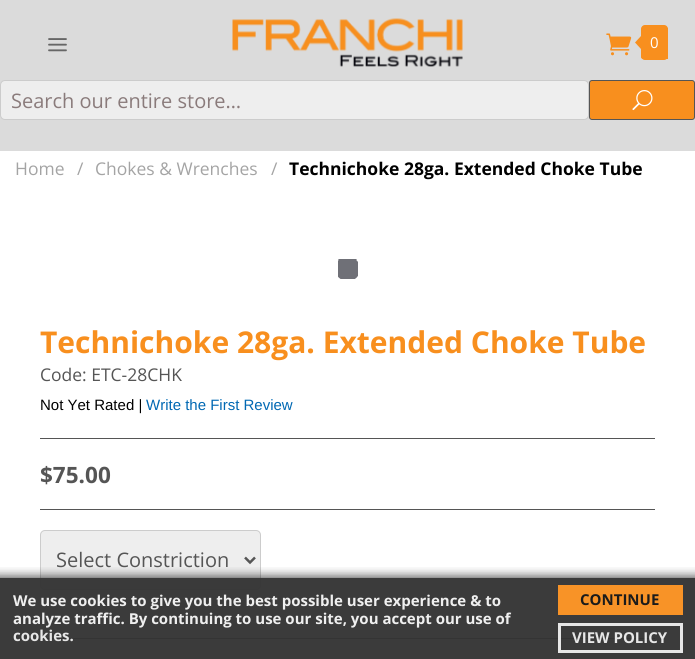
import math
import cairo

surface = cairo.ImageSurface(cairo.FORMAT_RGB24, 695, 659)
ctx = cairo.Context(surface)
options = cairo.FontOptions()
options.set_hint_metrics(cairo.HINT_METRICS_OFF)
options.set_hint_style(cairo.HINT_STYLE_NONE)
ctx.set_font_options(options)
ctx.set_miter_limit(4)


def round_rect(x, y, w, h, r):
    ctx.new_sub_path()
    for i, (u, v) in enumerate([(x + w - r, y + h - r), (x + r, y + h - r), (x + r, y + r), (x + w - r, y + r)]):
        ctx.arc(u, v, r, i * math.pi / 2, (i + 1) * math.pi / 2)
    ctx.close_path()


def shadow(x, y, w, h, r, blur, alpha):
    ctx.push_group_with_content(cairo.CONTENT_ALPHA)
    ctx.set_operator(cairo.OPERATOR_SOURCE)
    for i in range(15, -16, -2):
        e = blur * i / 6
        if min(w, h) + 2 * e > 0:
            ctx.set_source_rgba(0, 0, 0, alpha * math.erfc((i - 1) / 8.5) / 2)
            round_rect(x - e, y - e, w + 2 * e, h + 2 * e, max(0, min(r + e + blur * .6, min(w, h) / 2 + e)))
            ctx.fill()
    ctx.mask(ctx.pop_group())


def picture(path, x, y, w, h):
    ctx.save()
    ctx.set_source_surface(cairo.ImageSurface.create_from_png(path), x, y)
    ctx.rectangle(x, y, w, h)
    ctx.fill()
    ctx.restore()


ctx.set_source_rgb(1, 1, 1)
ctx.paint()
ctx.set_source_rgb(0.859, 0.859, 0.859)
ctx.rectangle(0, 0, 695, 151)
ctx.fill()
picture("img1.png", 48, 38, 19, 14)
picture("img2.png", 232, 18, 231, 49)
picture("img3.png", 606, 33, 26, 23)
ctx.set_source_rgb(0.969, 0.561, 0.118)
round_rect(641, 25, 27, 35, 4)
ctx.fill()
ctx.new_path()
ctx.move_to(641, 36)
ctx.line_to(641, 49)
ctx.line_to(635, 42.5)
ctx.close_path()
ctx.fill()
ctx.new_path()
ctx.move_to(643.5, 28)
ctx.line_to(668, 28)
ctx.line_to(668, 59)
ctx.line_to(643.5, 59)
ctx.curve_to(642, 59, 641, 58, 641, 56.5)
ctx.line_to(641, 30.5)
ctx.curve_to(641, 29, 642, 28, 643.5, 28)
ctx.close_path()
ctx.fill()
ctx.select_font_face("Open Sans")
ctx.set_font_size(15)
ctx.set_source_rgb(1, 1, 1)
ctx.move_to(650, 48)
ctx.show_text("0")
ctx.set_source_rgb(0.933, 0.933, 0.933)
round_rect(0.5, 80.5, 588, 39, 4.5)
ctx.fill_preserve()
ctx.set_source_rgb(0.8, 0.8, 0.8)
ctx.set_line_width(1)
ctx.stroke()
ctx.set_font_size(20)
ctx.set_source_rgb(0.541, 0.482, 0.482)
ctx.move_to(11, 108)
ctx.show_text("Search our entire store…")
ctx.set_source_rgb(0.969, 0.561, 0.118)
round_rect(589.5, 80.5, 105, 39, 2.5)
ctx.fill_preserve()
ctx.set_source_rgb(0.333, 0.333, 0.333)
ctx.stroke()
picture("img4.png", 632, 90, 21, 21)
ctx.set_font_size(17.5)
ctx.set_source_rgb(0.643, 0.643, 0.643)
ctx.move_to(15, 175)
ctx.show_text("Home")
ctx.move_to(77, 175)
ctx.show_text("/")
ctx.move_to(95, 175)
ctx.show_text("Chokes & Wrenches")
ctx.move_to(271, 175)
ctx.show_text("/")
ctx.select_font_face("Open Sans", cairo.FONT_SLANT_NORMAL, cairo.FONT_WEIGHT_BOLD)
ctx.set_source_rgb(0, 0, 0)
ctx.move_to(289, 175)
ctx.show_text("Technichoke 28ga. Extended Choke Tube")
ctx.save()
ctx.rectangle(338, 259, 20, 20)
ctx.clip()
ctx.set_source_rgb(0.435, 0.439, 0.467)
ctx.arc(347.5, 268.5, 22.5, 0, 2 * math.pi)
ctx.fill()
ctx.new_path()
ctx.move_to(357, 259)
ctx.curve_to(360.5, 262, 362, 267, 361, 271.5)
ctx.curve_to(358, 287.5, 334, 285, 334, 269)
ctx.curve_to(334, 265, 335, 261.5, 338, 259)
ctx.set_source_rgb(1, 1, 1)
ctx.set_line_width(2.5)
ctx.stroke()
ctx.restore()
ctx.set_font_size(30)
ctx.set_source_rgb(0.969, 0.561, 0.118)
ctx.move_to(40, 353)
ctx.show_text("Technichoke 28ga. Extended Choke Tube")
ctx.select_font_face("Open Sans")
ctx.set_font_size(17.5)
ctx.set_source_rgb(0.333, 0.333, 0.333)
ctx.move_to(40, 381)
ctx.show_text("Code: ETC-28CHK")
ctx.select_font_face("Liberation Sans")
ctx.set_font_size(15)
ctx.set_source_rgb(0, 0, 0)
ctx.move_to(40, 410)
ctx.show_text("Not Yet Rated |")
ctx.set_source_rgb(0, 0.408, 0.702)
ctx.move_to(146, 410)
ctx.show_text("Write the First Review")
ctx.set_source_rgb(0.333, 0.333, 0.333)
ctx.rectangle(40, 438, 615, 1)
ctx.fill()
ctx.select_font_face("Open Sans", cairo.FONT_SLANT_NORMAL, cairo.FONT_WEIGHT_BOLD)
ctx.set_font_size(22.5)
ctx.move_to(40, 483)
ctx.show_text("$75.00")
ctx.rectangle(40, 509, 615, 1)
ctx.fill()
ctx.set_source_rgb(0.933, 0.933, 0.933)
round_rect(40.5, 530.5, 220, 59, 4.5)
ctx.fill_preserve()
ctx.set_source_rgb(0.8, 0.8, 0.8)
ctx.stroke()
ctx.new_path()
ctx.move_to(245, 557.5)
ctx.line_to(250, 562.5)
ctx.line_to(255, 557.5)
ctx.set_source_rgb(0.333, 0.333, 0.333)
ctx.set_line_width(2.5)
ctx.stroke()
ctx.select_font_face("Open Sans")
ctx.set_font_size(20)
ctx.move_to(56, 567)
ctx.show_text("Select Constriction")
ctx.rectangle(40, 638, 615, 1)
ctx.fill()
ctx.save()
ctx.rectangle(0, 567, 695, 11)
ctx.clip()
ctx.set_source_rgb(0.067, 0.067, 0.067)
shadow(-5, 576, 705, 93, 0, 5, 0.69)
ctx.restore()
ctx.set_source_rgba(0.2, 0.2, 0.2, 0.96)
ctx.rectangle(0, 578, 695, 81)
ctx.fill()
ctx.select_font_face("Open Sans", cairo.FONT_SLANT_NORMAL, cairo.FONT_WEIGHT_BOLD)
ctx.set_font_size(15)
ctx.set_source_rgb(0.937, 0.937, 0.937)
ctx.move_to(13, 606)
ctx.show_text("We use cookies to give you the best possible user experience & to")
ctx.move_to(13, 624)
ctx.show_text("analyze traffic. By continuing to use our site, you accept our use of")
ctx.set_source_rgb(0.906, 0.906, 0.906)
ctx.move_to(13, 641)
ctx.show_text("cookies.")
ctx.set_source_rgb(0.969, 0.576, 0.153)
ctx.rectangle(558, 585, 125, 30)
ctx.fill()
ctx.set_source_rgb(0.106, 0.106, 0.106)
ctx.move_to(580, 605)
ctx.show_text("CONTINUE")
ctx.rectangle(559.5, 624.5, 122, 27)
ctx.set_source_rgba(0.933, 0.933, 0.933, 0.96)
ctx.set_line_width(3)
ctx.stroke()
ctx.set_source_rgb(0.906, 0.906, 0.906)
ctx.move_to(572, 643)
ctx.show_text("VIEW POLICY")
surface.write_to_png("page.png")
